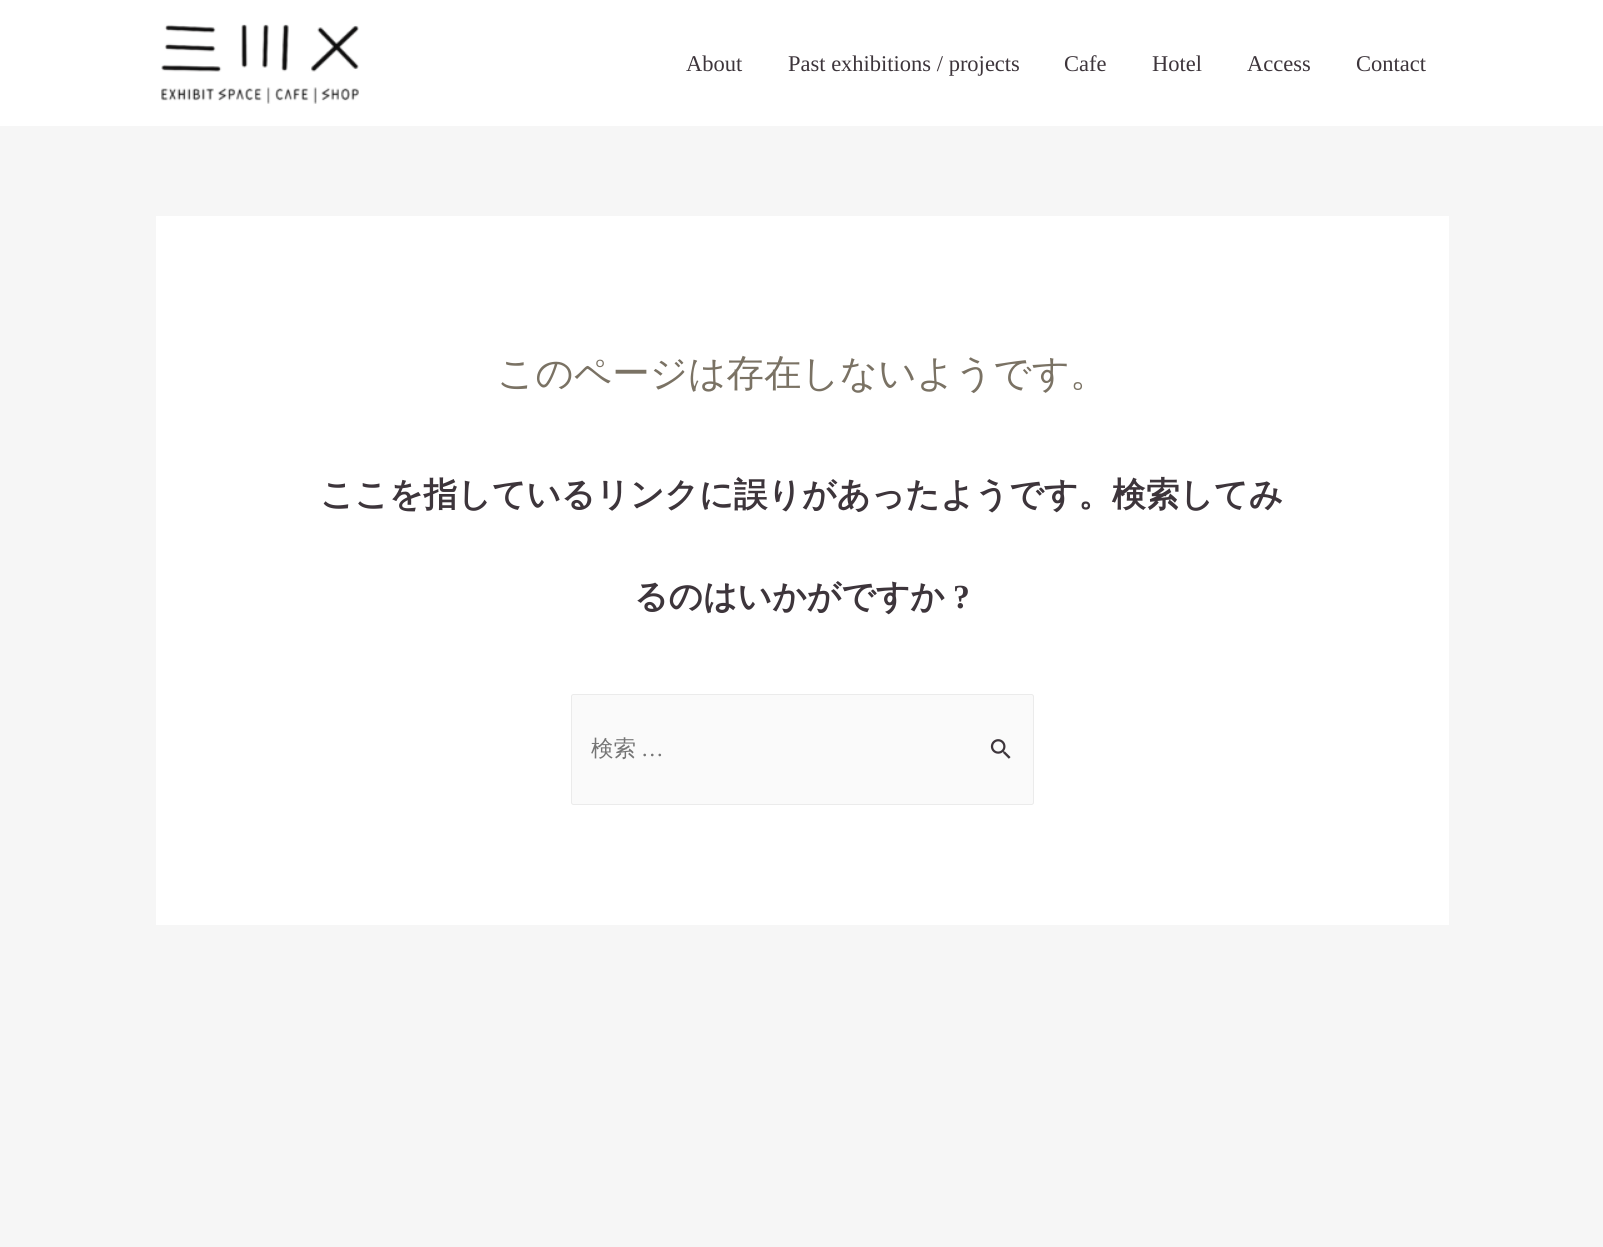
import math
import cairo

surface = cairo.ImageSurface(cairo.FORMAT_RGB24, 1603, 1247)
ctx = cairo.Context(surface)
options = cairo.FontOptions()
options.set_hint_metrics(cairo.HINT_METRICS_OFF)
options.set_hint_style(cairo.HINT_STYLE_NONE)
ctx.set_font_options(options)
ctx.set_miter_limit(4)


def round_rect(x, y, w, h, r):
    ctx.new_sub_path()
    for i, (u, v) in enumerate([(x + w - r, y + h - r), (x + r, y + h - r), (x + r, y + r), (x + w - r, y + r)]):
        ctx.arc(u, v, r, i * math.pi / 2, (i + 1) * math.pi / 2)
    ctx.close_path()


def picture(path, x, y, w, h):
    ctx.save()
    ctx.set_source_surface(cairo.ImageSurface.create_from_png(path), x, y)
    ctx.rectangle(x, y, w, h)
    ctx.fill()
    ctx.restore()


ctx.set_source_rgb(0.961, 0.961, 0.961)
ctx.paint()
ctx.set_source_rgb(1, 1, 1)
ctx.rectangle(0, 0, 1603, 126)
ctx.fill()
picture("img1.png", 161, 24, 198, 80)
ctx.select_font_face("Liberation Serif")
ctx.set_font_size(22.5)
ctx.set_source_rgb(0.239, 0.208, 0.231)
ctx.move_to(686, 71)
ctx.show_text("About")
ctx.move_to(788, 71)
ctx.show_text("Past exhibitions / projects")
ctx.move_to(1064, 71)
ctx.show_text("Cafe")
ctx.move_to(1152, 71)
ctx.show_text("Hotel")
ctx.move_to(1247, 71)
ctx.show_text("Access")
ctx.move_to(1356, 71)
ctx.show_text("Contact")
ctx.set_source_rgb(1, 1, 1)
ctx.rectangle(156, 216, 1293, 709)
ctx.fill()
ctx.select_font_face("WenQuanYi Zen Hei Medium")
ctx.set_font_size(37.5)
ctx.set_source_rgb(0.478, 0.447, 0.392)
ctx.move_to(497, 386)
ctx.show_text("このページは存在しないようです。")
ctx.select_font_face("WenQuanYi Zen Hei", cairo.FONT_SLANT_NORMAL, cairo.FONT_WEIGHT_BOLD)
ctx.set_font_size(33.75)
ctx.set_source_rgb(0.239, 0.208, 0.231)
ctx.move_to(320, 506)
ctx.show_text("ここを指しているリンクに誤りがあったようです。検索してみ")
ctx.move_to(634, 608)
ctx.show_text("るのはいかがですか")
ctx.select_font_face("Liberation Serif", cairo.FONT_SLANT_NORMAL, cairo.FONT_WEIGHT_BOLD)
ctx.move_to(953, 608)
ctx.show_text("?")
ctx.set_source_rgb(0.98, 0.98, 0.98)
round_rect(571.5, 694.5, 462, 110, 2)
ctx.fill_preserve()
ctx.set_source_rgb(0.918, 0.918, 0.918)
ctx.set_line_width(1)
ctx.stroke()
ctx.select_font_face("WenQuanYi Zen Hei Medium")
ctx.set_font_size(22.5)
ctx.set_source_rgb(0.459, 0.459, 0.459)
ctx.move_to(591, 756)
ctx.show_text("検索")
ctx.select_font_face("Liberation Serif")
ctx.move_to(641, 756)
ctx.show_text("…")
picture("img2.png", 990, 739, 21, 20)
surface.write_to_png("page.png")
